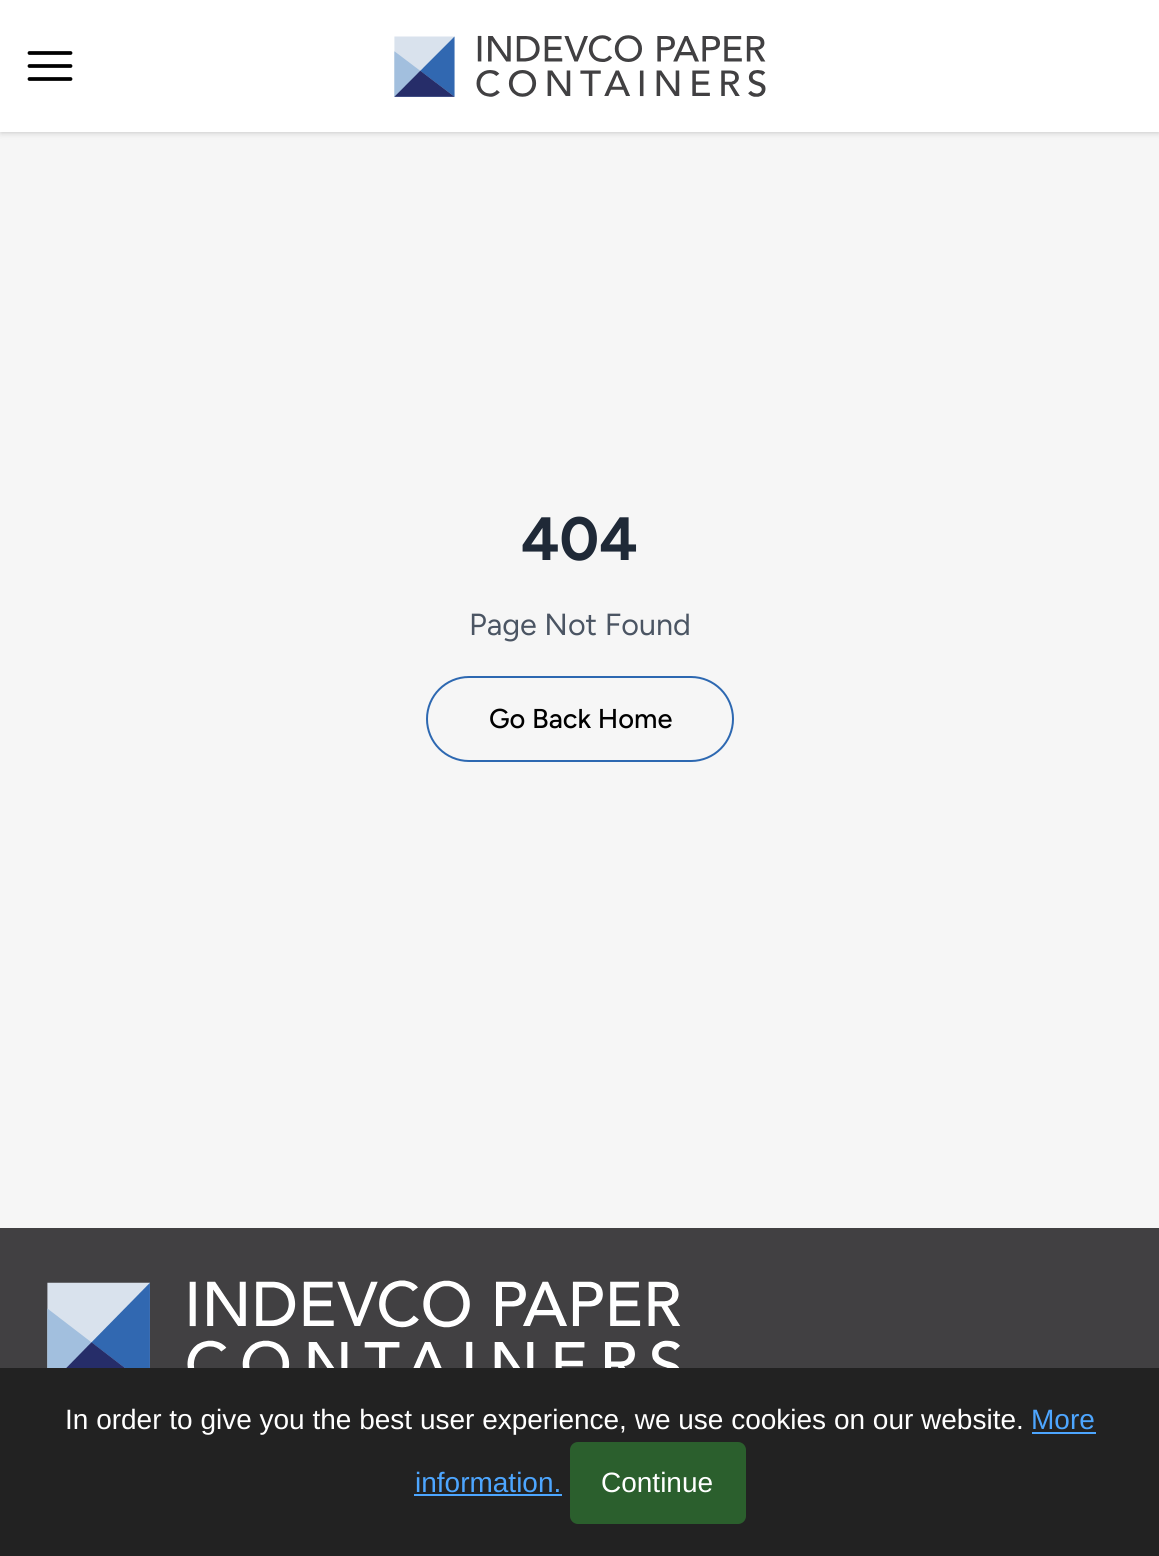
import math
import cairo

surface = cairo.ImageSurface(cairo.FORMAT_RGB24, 1159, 1556)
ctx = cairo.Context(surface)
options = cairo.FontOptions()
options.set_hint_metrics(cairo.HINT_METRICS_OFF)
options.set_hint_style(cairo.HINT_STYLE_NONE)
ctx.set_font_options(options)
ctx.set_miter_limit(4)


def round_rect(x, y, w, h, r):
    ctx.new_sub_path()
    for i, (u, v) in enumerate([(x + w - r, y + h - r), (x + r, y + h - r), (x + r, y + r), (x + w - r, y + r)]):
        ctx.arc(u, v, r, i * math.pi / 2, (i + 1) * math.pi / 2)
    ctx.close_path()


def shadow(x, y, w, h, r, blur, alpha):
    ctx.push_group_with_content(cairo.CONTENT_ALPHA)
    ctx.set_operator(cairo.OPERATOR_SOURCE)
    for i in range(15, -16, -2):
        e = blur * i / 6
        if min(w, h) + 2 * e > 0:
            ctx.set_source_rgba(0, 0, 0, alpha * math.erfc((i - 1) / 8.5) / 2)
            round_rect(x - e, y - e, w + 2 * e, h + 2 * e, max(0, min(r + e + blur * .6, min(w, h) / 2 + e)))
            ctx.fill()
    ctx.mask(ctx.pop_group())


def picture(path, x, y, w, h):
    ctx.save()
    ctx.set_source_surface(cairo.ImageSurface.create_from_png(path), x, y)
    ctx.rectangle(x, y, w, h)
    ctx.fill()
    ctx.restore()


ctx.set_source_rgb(0.961, 0.961, 0.961)
ctx.paint()
ctx.set_source_rgb(0, 0, 0)
shadow(2, 4, 1156, 128, 0, 2, 0.1)
shadow(0, 2, 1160, 132, 0, 3, 0.1)
ctx.set_source_rgb(1, 1, 1)
ctx.rectangle(0, 0, 1159, 132)
ctx.fill()
ctx.new_path()
ctx.move_to(29.5, 53)
ctx.line_to(70.5, 53)
ctx.move_to(29.5, 66)
ctx.line_to(70.5, 66)
ctx.move_to(29.5, 79)
ctx.line_to(70.5, 79)
ctx.set_source_rgb(0, 0, 0)
ctx.set_line_width(3.8)
ctx.set_line_cap(cairo.LINE_CAP_ROUND)
ctx.set_line_join(cairo.LINE_JOIN_ROUND)
ctx.stroke()
picture("img1.png", 394, 35, 372, 62)
ctx.select_font_face("Figtree", cairo.FONT_SLANT_NORMAL, cairo.FONT_WEIGHT_BOLD)
ctx.set_font_size(61)
ctx.set_source_rgb(0.122, 0.161, 0.216)
ctx.move_to(521, 560)
ctx.show_text("404")
ctx.select_font_face("Figtree")
ctx.set_font_size(30.5)
ctx.set_source_rgb(0.294, 0.333, 0.388)
ctx.move_to(469, 635)
ctx.show_text("Page Not Found")
round_rect(427, 677, 306, 84, 42)
ctx.set_source_rgb(0.176, 0.408, 0.694)
ctx.set_line_width(2)
ctx.set_line_cap(cairo.LINE_CAP_BUTT)
ctx.set_line_join(cairo.LINE_JOIN_MITER)
ctx.stroke()
ctx.select_font_face("Figtree Medium")
ctx.set_font_size(27.25)
ctx.set_source_rgb(0, 0, 0)
ctx.move_to(489, 728)
ctx.show_text("Go Back Home")
ctx.set_source_rgb(0.255, 0.251, 0.259)
ctx.rectangle(0, 1228, 1159, 140)
ctx.fill()
picture("img2.png", 47, 1280, 634, 88)
ctx.set_source_rgb(0.133, 0.133, 0.133)
ctx.rectangle(0, 1368, 1159, 188)
ctx.fill()
ctx.select_font_face("Liberation Sans")
ctx.set_font_size(28)
ctx.set_source_rgb(1, 1, 1)
ctx.move_to(65, 1429)
ctx.show_text("In order to give you the best user experience, we use cookies on our website.")
ctx.set_source_rgb(0.302, 0.651, 1)
ctx.move_to(1031, 1429)
ctx.show_text("More")
ctx.rectangle(1032, 1432, 64, 2)
ctx.fill()
ctx.move_to(415, 1492)
ctx.show_text("information.")
ctx.rectangle(414, 1494, 148, 2)
ctx.fill()
ctx.set_source_rgb(0.169, 0.373, 0.176)
round_rect(570, 1442, 176, 82, 8)
ctx.fill()
ctx.set_source_rgb(1, 1, 1)
ctx.move_to(601, 1492)
ctx.show_text("Continue")
surface.write_to_png("page.png")
